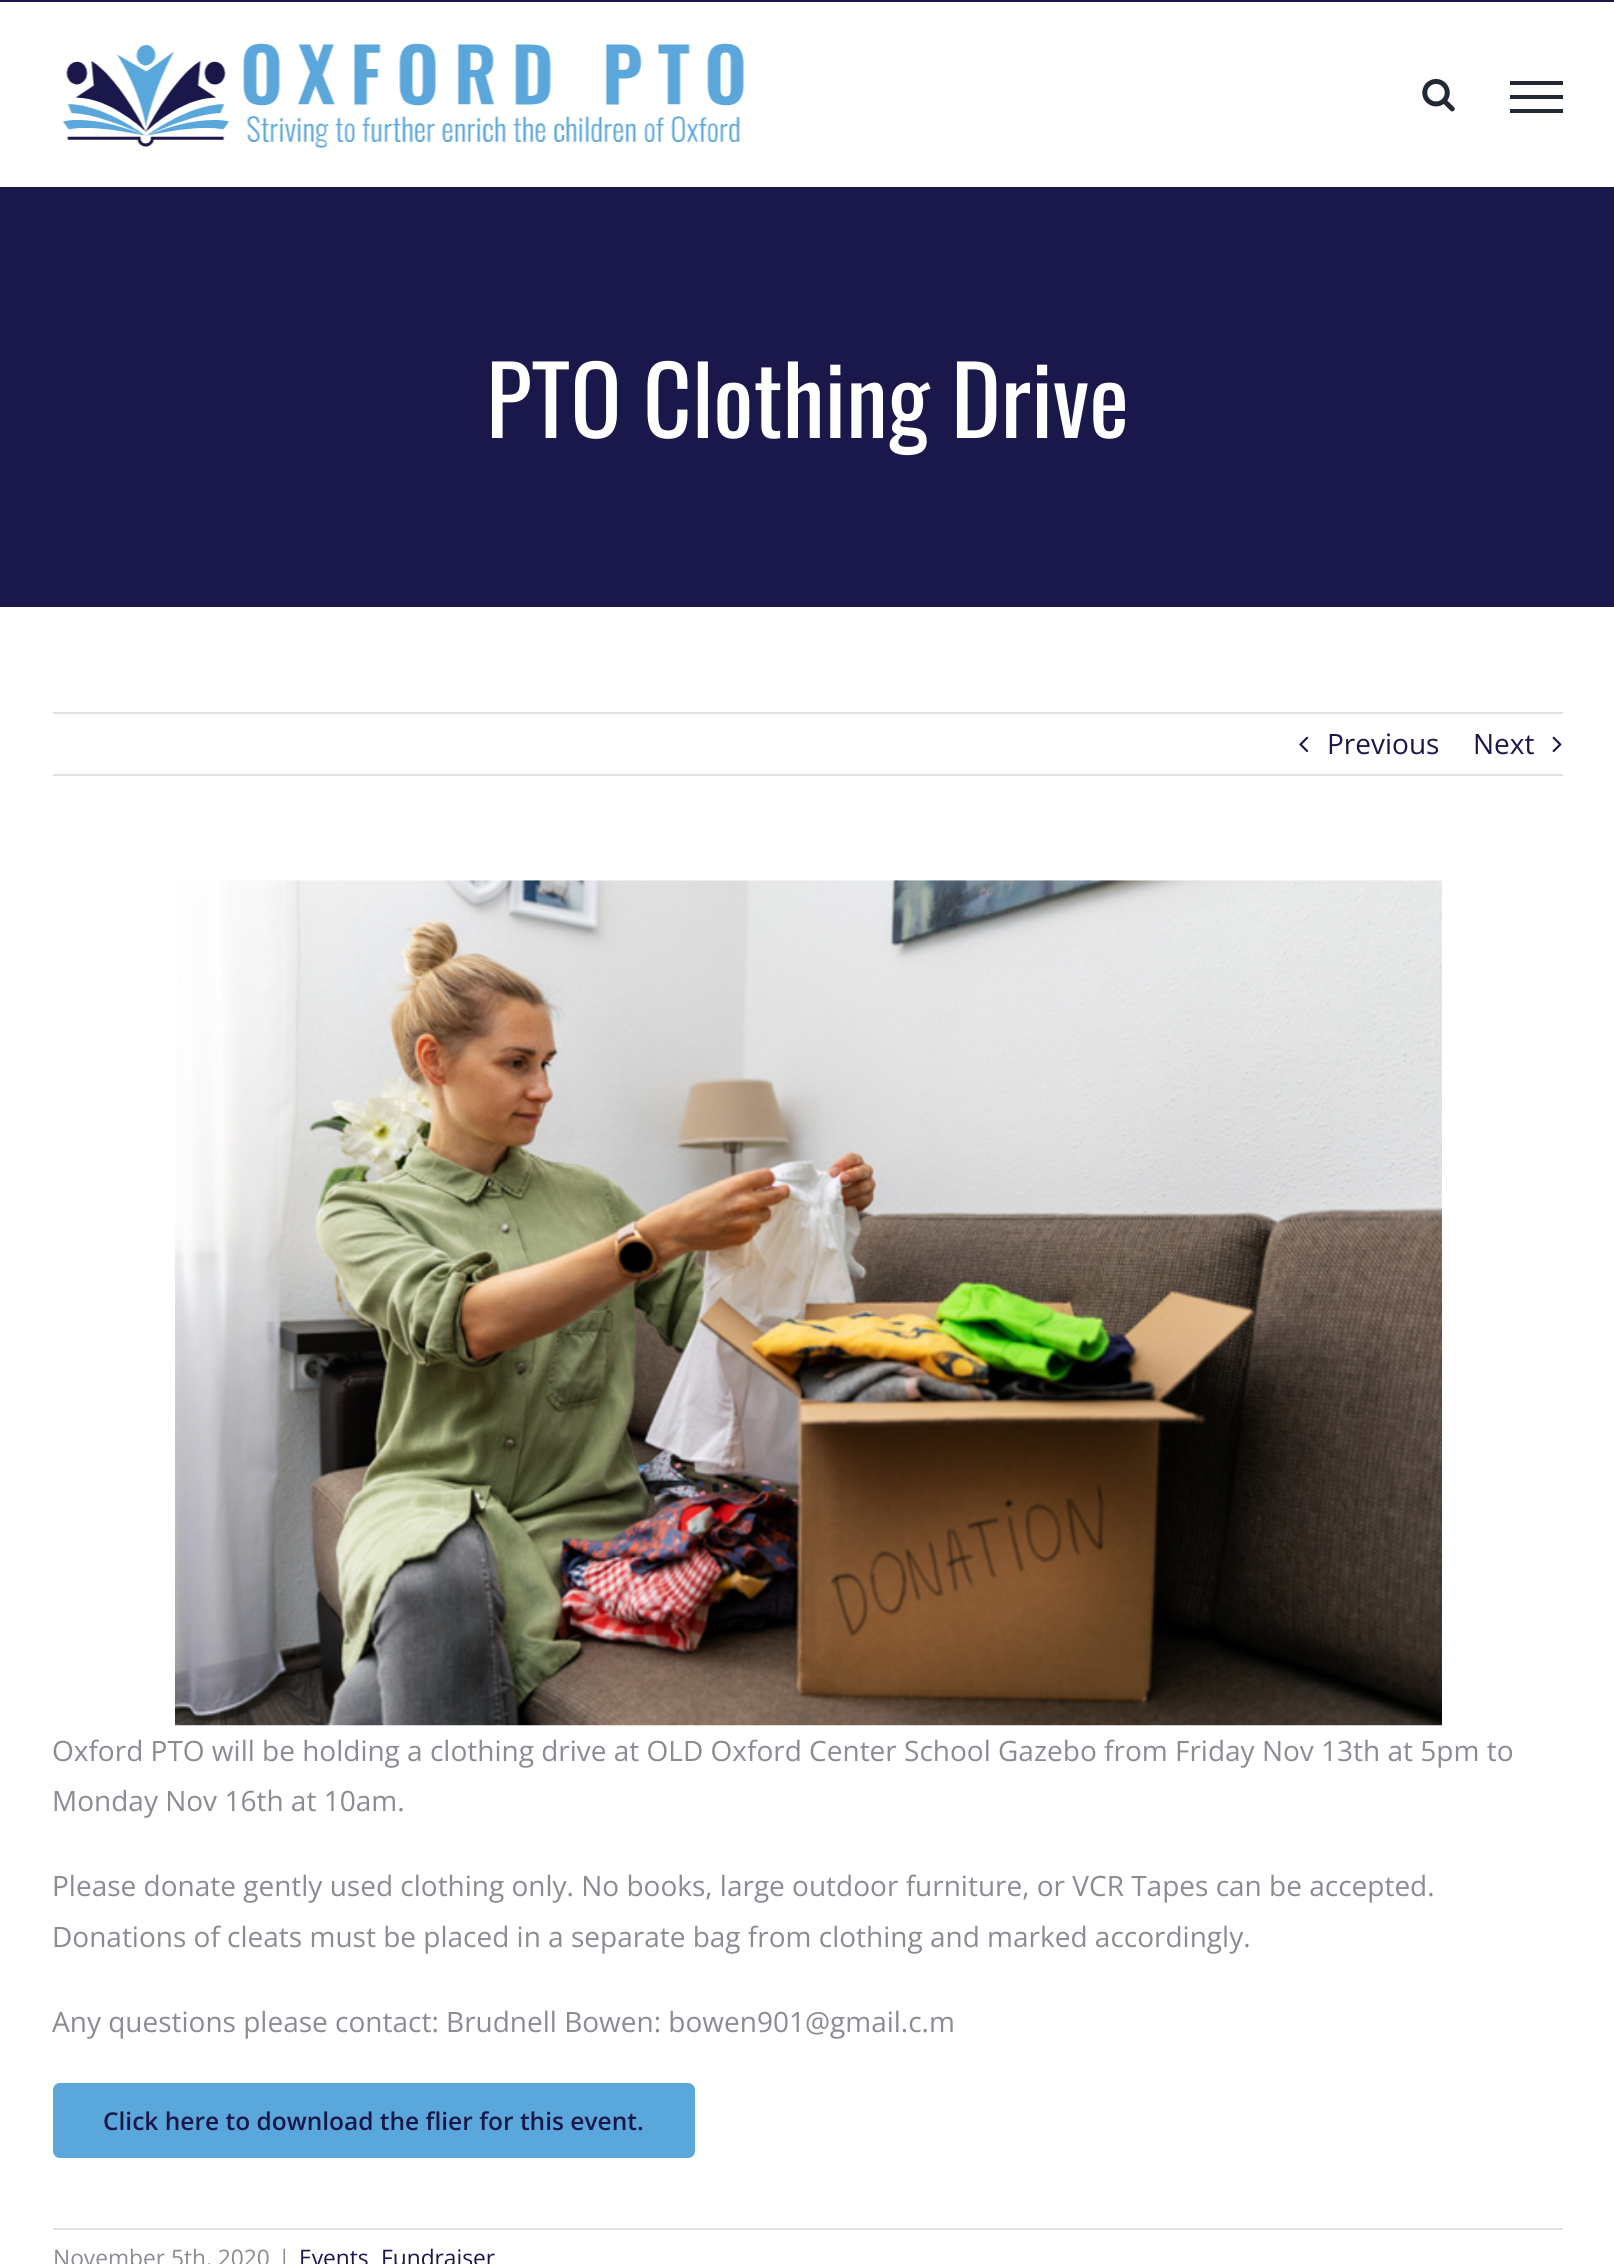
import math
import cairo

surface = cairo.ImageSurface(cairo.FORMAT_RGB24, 1614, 2264)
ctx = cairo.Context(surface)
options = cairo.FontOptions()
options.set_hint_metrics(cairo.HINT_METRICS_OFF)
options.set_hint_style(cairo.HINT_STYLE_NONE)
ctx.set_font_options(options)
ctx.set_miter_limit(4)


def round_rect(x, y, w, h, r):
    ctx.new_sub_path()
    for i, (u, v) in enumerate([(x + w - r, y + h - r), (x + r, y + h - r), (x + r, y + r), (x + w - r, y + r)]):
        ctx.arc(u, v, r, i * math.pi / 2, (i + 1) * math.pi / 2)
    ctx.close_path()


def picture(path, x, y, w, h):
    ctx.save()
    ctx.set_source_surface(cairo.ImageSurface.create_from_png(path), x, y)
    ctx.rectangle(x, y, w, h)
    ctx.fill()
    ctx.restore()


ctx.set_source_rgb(1, 1, 1)
ctx.paint()
ctx.set_source_rgb(0.102, 0.094, 0.29)
ctx.rectangle(0, 0, 1614, 2)
ctx.fill()
picture("img1.png", 62, 43, 682, 105)
picture("img2.png", 1422, 78, 33, 34)
ctx.set_source_rgb(0.129, 0.161, 0.204)
ctx.rectangle(1510, 81, 53, 4)
ctx.fill()
ctx.rectangle(1510, 95, 53, 4)
ctx.fill()
ctx.rectangle(1510, 109, 53, 4)
ctx.fill()
ctx.set_source_rgb(0.102, 0.094, 0.29)
ctx.rectangle(0, 187, 1614, 420)
ctx.fill()
ctx.select_font_face("Oswald")
ctx.set_font_size(94.5)
ctx.set_source_rgb(1, 1, 1)
ctx.move_to(486, 438)
ctx.show_text("PTO Clothing Drive")
ctx.set_source_rgb(0.886, 0.886, 0.886)
ctx.rectangle(53, 712, 1510, 2)
ctx.fill()
ctx.rectangle(53, 774, 1510, 2)
ctx.fill()
picture("img3.png", 1299, 736, 10, 17)
ctx.select_font_face("Open Sans")
ctx.set_font_size(28)
ctx.set_source_rgb(0.102, 0.094, 0.29)
ctx.move_to(1327, 754)
ctx.show_text("Previous")
ctx.move_to(1473, 754)
ctx.show_text("Next")
picture("img4.png", 1552, 736, 10, 17)
picture("img5.png", 175, 880, 1267, 846)
ctx.set_source_rgb(0.537, 0.549, 0.573)
ctx.move_to(52, 1761)
ctx.show_text("Oxford PTO will be holding a clothing drive at OLD Oxford Center School Gazebo from Friday Nov 13th at 5pm to")
ctx.move_to(52, 1811)
ctx.show_text("Monday Nov 16th at 10am.")
ctx.move_to(52, 1896)
ctx.show_text("Please donate gently used clothing only. No books, large outdoor furniture, or VCR Tapes can be accepted.")
ctx.move_to(52, 1947)
ctx.show_text("Donations of cleats must be placed in a separate bag from clothing and marked accordingly.")
ctx.move_to(52, 2032)
ctx.show_text("Any questions please contact: Brudnell Bowen: bowen901@gmail.c.m")
ctx.set_source_rgb(0.353, 0.655, 0.863)
round_rect(53, 2083, 642, 75, 7)
ctx.fill()
ctx.select_font_face("Open Sans SemiBold")
ctx.set_font_size(24.5)
ctx.set_source_rgb(0.102, 0.094, 0.29)
ctx.move_to(103, 2130)
ctx.show_text("Click here to download the flier for this event.")
ctx.set_source_rgb(0.886, 0.886, 0.886)
ctx.rectangle(53, 2228, 1510, 2)
ctx.fill()
ctx.select_font_face("Open Sans")
ctx.set_font_size(22.75)
ctx.set_source_rgb(0.537, 0.549, 0.573)
ctx.move_to(53, 2266)
ctx.show_text("November 5th, 2020")
ctx.move_to(278, 2266)
ctx.show_text("|")
ctx.set_source_rgb(0.102, 0.094, 0.29)
ctx.move_to(299, 2266)
ctx.show_text("Events")
ctx.move_to(381, 2266)
ctx.show_text("Fundraiser")
surface.write_to_png("page.png")
